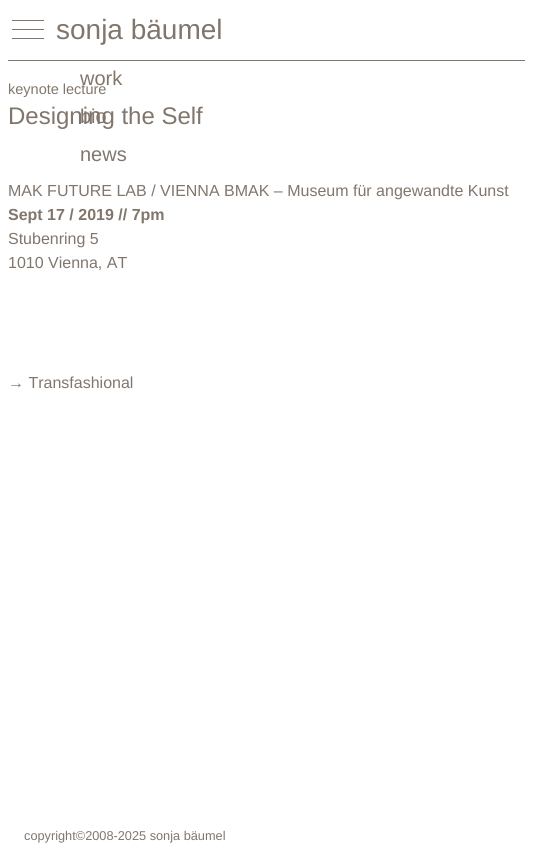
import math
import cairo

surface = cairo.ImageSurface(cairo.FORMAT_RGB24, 533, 857)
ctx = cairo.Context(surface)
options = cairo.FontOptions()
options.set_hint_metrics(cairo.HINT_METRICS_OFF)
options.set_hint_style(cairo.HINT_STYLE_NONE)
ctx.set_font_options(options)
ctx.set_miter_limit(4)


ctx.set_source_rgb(1, 1, 1)
ctx.paint()
ctx.set_source_rgb(0.506, 0.463, 0.424)
ctx.rectangle(12, 20, 32, 1)
ctx.fill()
ctx.rectangle(12, 29, 32, 1)
ctx.fill()
ctx.rectangle(12, 38, 32, 1)
ctx.fill()
ctx.select_font_face("Liberation Sans")
ctx.set_font_size(28)
ctx.move_to(56, 39)
ctx.show_text("sonja bäumel")
ctx.set_font_size(20)
ctx.move_to(80, 85)
ctx.show_text("work")
ctx.set_font_size(24)
ctx.move_to(8, 124)
ctx.show_text("Designing the Self")
ctx.set_font_size(20)
ctx.move_to(80, 123)
ctx.show_text("bio")
ctx.move_to(80, 161)
ctx.show_text("news")
ctx.rectangle(8, 60, 517, 1)
ctx.fill()
ctx.set_font_size(14.5)
ctx.move_to(8, 94)
ctx.show_text("keynote lecture")
ctx.set_font_size(16)
ctx.move_to(8, 196)
ctx.show_text("MAK FUTURE LAB / VIENNA BMAK – Museum für angewandte Kunst")
ctx.select_font_face("Liberation Sans", cairo.FONT_SLANT_NORMAL, cairo.FONT_WEIGHT_BOLD)
ctx.move_to(8, 220)
ctx.show_text("Sept 17 / 2019 // 7pm")
ctx.select_font_face("Liberation Sans")
ctx.move_to(8, 244)
ctx.show_text("Stubenring 5")
ctx.move_to(8, 268)
ctx.show_text("1010 Vienna, AT")
ctx.move_to(8, 388)
ctx.show_text("→ Transfashional")
ctx.set_font_size(12.75)
ctx.move_to(24, 840)
ctx.show_text("copyright©2008-2025 sonja bäumel")
surface.write_to_png("page.png")
